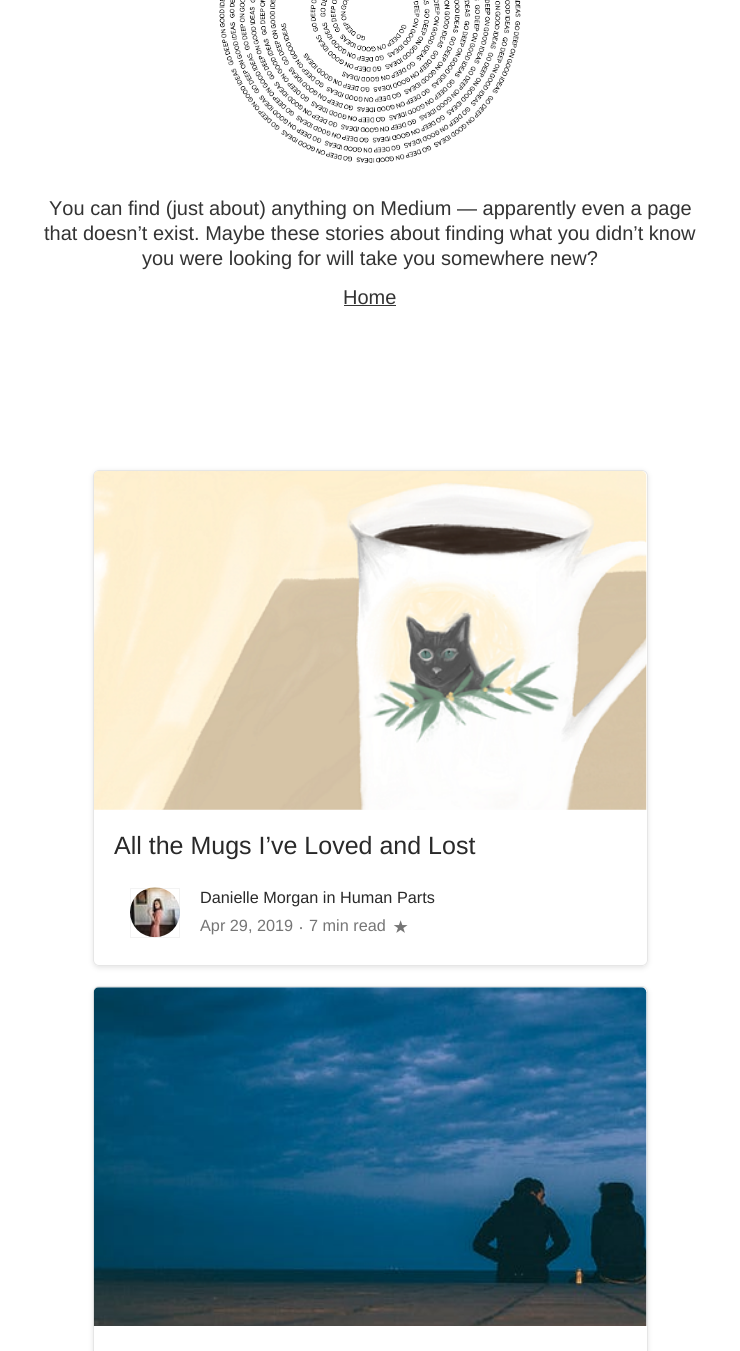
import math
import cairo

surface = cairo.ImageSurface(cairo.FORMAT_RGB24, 740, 1351)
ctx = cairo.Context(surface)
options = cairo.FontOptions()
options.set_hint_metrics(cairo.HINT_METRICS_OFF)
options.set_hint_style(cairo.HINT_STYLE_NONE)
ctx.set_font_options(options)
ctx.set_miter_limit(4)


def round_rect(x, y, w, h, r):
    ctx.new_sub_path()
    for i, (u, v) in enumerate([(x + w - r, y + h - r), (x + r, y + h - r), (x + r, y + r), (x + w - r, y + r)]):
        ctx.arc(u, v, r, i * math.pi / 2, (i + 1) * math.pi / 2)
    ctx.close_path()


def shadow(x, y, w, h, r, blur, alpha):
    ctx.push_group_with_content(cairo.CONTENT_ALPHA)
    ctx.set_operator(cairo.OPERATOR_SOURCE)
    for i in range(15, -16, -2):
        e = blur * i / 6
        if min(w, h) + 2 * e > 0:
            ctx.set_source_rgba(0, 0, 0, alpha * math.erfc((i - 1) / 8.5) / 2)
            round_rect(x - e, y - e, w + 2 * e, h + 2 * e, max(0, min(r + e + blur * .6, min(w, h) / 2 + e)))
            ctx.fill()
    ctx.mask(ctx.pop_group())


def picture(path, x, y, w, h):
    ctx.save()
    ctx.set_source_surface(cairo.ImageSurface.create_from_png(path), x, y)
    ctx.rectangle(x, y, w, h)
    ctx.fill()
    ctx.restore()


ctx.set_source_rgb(1, 1, 1)
ctx.paint()
picture("img1.png", 219, 0, 302, 163)
ctx.select_font_face("Liberation Sans")
ctx.set_font_size(20)
ctx.set_source_rgb(0.2, 0.2, 0.2)
ctx.move_to(49, 215)
ctx.show_text("You can find (just about) anything on Medium — apparently even a page")
ctx.move_to(44, 240)
ctx.show_text("that doesn’t exist. Maybe these stories about finding what you didn’t know")
ctx.move_to(142, 265)
ctx.show_text("you were looking for will take you somewhere new?")
ctx.move_to(343, 304)
ctx.show_text("Home")
ctx.rectangle(344, 305, 52, 1)
ctx.fill()
ctx.save()
ctx.set_fill_rule(cairo.FILL_RULE_EVEN_ODD)
ctx.new_path()
ctx.move_to(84, 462)
ctx.line_to(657, 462)
ctx.line_to(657, 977)
ctx.line_to(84, 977)
ctx.close_path()
ctx.move_to(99, 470)
ctx.line_to(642, 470)
ctx.curve_to(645.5, 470, 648, 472.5, 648, 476)
ctx.line_to(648, 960)
ctx.curve_to(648, 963.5, 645.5, 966, 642, 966)
ctx.line_to(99, 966)
ctx.curve_to(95.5, 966, 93, 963.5, 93, 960)
ctx.line_to(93, 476)
ctx.curve_to(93, 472.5, 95.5, 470, 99, 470)
ctx.close_path()
ctx.clip()
ctx.set_source_rgb(0.902, 0.902, 0.902)
shadow(93, 471, 555, 497, 6, 2.5, 1)
ctx.restore()
round_rect(93.5, 470.5, 554, 495, 5.5)
ctx.set_source_rgb(0.902, 0.902, 0.902)
ctx.set_line_width(1)
ctx.stroke()
picture("img2.png", 94, 471, 553, 339)
ctx.set_font_size(25)
ctx.set_source_rgb(0.161, 0.161, 0.161)
ctx.move_to(114, 854)
ctx.show_text("All the Mugs I’ve Loved and Lost")
picture("img3.png", 130, 887, 50, 51)
ctx.rectangle(130.5, 888.5, 49, 49)
ctx.set_source_rgba(0, 0, 0, 0.05)
ctx.stroke()
ctx.set_font_size(16.25)
ctx.set_source_rgb(0.161, 0.161, 0.161)
ctx.move_to(200, 903)
ctx.show_text("Danielle Morgan in Human Parts")
ctx.set_source_rgb(0.459, 0.459, 0.459)
ctx.move_to(200, 931)
ctx.show_text("Apr 29, 2019")
ctx.set_font_size(18)
ctx.move_to(298, 933)
ctx.show_text("·")
ctx.set_font_size(16.25)
ctx.move_to(309, 931)
ctx.show_text("7 min read")
picture("img4.png", 393, 920, 15, 13)
ctx.save()
ctx.set_fill_rule(cairo.FILL_RULE_EVEN_ODD)
ctx.new_path()
ctx.move_to(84, 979)
ctx.line_to(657, 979)
ctx.line_to(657, 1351)
ctx.line_to(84, 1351)
ctx.close_path()
ctx.move_to(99, 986)
ctx.line_to(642, 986)
ctx.curve_to(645.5, 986, 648, 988.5, 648, 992)
ctx.line_to(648, 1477)
ctx.curve_to(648, 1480.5, 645.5, 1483, 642, 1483)
ctx.line_to(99, 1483)
ctx.curve_to(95.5, 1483, 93, 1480.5, 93, 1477)
ctx.line_to(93, 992)
ctx.curve_to(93, 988.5, 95.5, 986, 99, 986)
ctx.close_path()
ctx.clip()
ctx.set_source_rgb(0.902, 0.902, 0.902)
shadow(93, 988, 555, 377, 6, 2.5, 1)
ctx.restore()
round_rect(93.5, 986.5, 554, 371, 5.5)
ctx.set_source_rgb(0.902, 0.902, 0.902)
ctx.stroke()
picture("img5.png", 93, 987, 554, 339)
surface.write_to_png("page.png")
